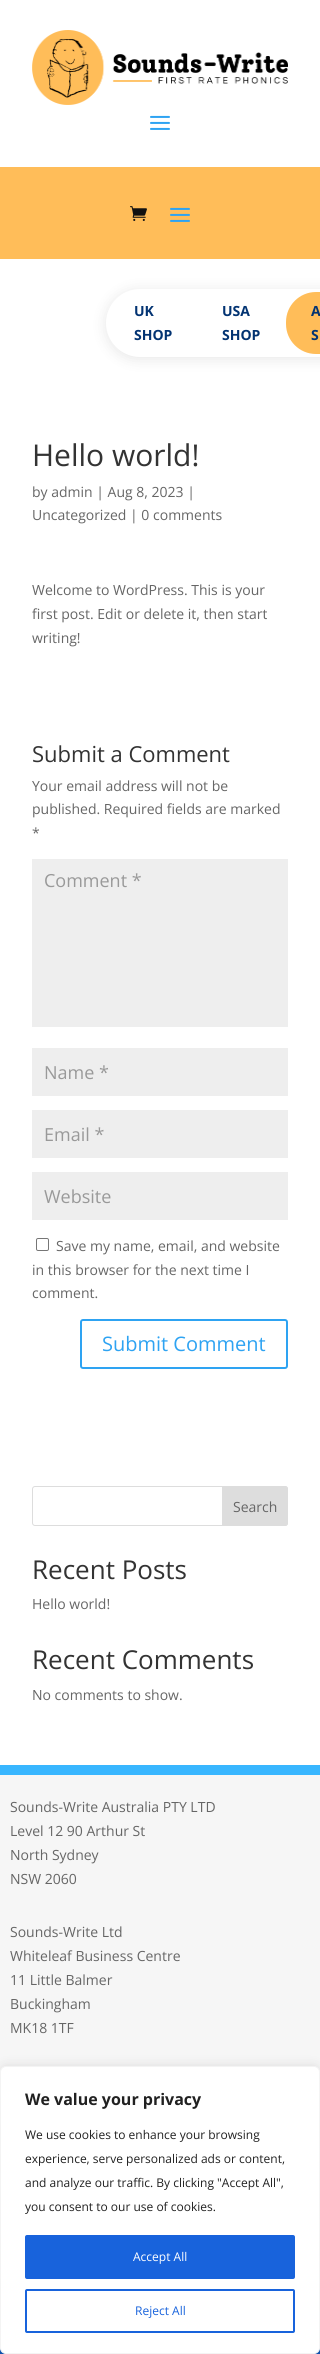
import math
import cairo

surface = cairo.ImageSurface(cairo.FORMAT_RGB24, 320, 2354)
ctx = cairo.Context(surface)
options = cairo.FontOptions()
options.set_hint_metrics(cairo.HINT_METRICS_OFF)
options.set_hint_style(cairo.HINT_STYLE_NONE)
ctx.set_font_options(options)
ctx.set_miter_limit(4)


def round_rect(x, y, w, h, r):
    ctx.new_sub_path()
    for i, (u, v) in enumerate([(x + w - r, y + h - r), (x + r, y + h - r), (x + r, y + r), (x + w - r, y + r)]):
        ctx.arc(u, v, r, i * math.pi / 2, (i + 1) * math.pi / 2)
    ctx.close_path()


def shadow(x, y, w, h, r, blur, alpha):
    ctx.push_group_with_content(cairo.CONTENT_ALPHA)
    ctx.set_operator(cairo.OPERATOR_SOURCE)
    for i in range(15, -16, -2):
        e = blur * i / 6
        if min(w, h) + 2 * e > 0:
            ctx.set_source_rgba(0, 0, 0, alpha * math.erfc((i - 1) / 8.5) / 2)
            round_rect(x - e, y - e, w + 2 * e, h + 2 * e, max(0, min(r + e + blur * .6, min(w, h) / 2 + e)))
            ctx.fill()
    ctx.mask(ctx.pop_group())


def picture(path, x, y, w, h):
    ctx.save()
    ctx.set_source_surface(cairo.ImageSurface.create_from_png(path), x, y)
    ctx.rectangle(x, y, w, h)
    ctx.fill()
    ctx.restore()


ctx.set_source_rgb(1, 1, 1)
ctx.paint()
picture("img1.png", 32, 30, 256, 75)
picture("img2.png", 150, 115, 20, 15)
ctx.set_source_rgb(1, 0.741, 0.349)
ctx.rectangle(0, 167, 320, 92)
ctx.fill()
picture("img3.png", 130, 206, 17, 15)
picture("img4.png", 170, 207, 20, 15)
ctx.set_source_rgb(0, 0, 0)
shadow(106, 291, 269, 68, 34, 7, 0.1)
ctx.set_source_rgb(1, 1, 1)
round_rect(107.5, 290.5, 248, 65, 32.5)
ctx.fill_preserve()
ctx.set_line_width(3)
ctx.stroke()
ctx.select_font_face("Open Sans", cairo.FONT_SLANT_NORMAL, cairo.FONT_WEIGHT_BOLD)
ctx.set_font_size(14)
ctx.set_source_rgb(0.008, 0.2, 0.447)
ctx.move_to(134, 316)
ctx.show_text("UK")
ctx.move_to(134, 340)
ctx.show_text("SHOP")
ctx.move_to(222, 316)
ctx.show_text("USA")
ctx.move_to(222, 340)
ctx.show_text("SHOP")
ctx.set_source_rgb(1, 0.741, 0.349)
round_rect(286, 292, 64, 62, 30)
ctx.fill()
ctx.set_source_rgb(0.008, 0.2, 0.447)
ctx.move_to(311, 316)
ctx.show_text("A")
ctx.move_to(311, 340)
ctx.show_text("S")
ctx.select_font_face("Open Sans")
ctx.set_font_size(30)
ctx.set_source_rgb(0.2, 0.2, 0.2)
ctx.move_to(32, 466)
ctx.show_text("Hello world!")
ctx.set_font_size(14)
ctx.set_source_rgb(0.4, 0.4, 0.4)
ctx.move_to(32, 497)
ctx.show_text("by admin | Aug 8, 2023 |")
ctx.move_to(32, 520)
ctx.show_text("Uncategorized | 0 comments")
ctx.move_to(32, 595)
ctx.show_text("Welcome to WordPress. This is your")
ctx.move_to(32, 619)
ctx.show_text("first post. Edit or delete it, then start")
ctx.move_to(32, 643)
ctx.show_text("writing!")
ctx.set_font_size(22)
ctx.set_source_rgb(0.2, 0.2, 0.2)
ctx.move_to(32, 762)
ctx.show_text("Submit a Comment")
ctx.set_font_size(14)
ctx.set_source_rgb(0.4, 0.4, 0.4)
ctx.move_to(32, 791)
ctx.show_text("Your email address will not be")
ctx.move_to(32, 814)
ctx.show_text("published. Required fields are marked")
ctx.move_to(32, 838)
ctx.show_text("*")
ctx.set_source_rgb(0.933, 0.933, 0.933)
ctx.rectangle(32, 859, 256, 168)
ctx.fill()
ctx.set_font_size(18)
ctx.set_source_rgb(0.6, 0.6, 0.6)
ctx.move_to(44, 887)
ctx.show_text("Comment *")
ctx.set_source_rgb(0.933, 0.933, 0.933)
ctx.rectangle(32, 1048, 256, 48)
ctx.fill()
ctx.set_source_rgb(0.6, 0.6, 0.6)
ctx.move_to(44, 1079)
ctx.show_text("Name *")
ctx.set_source_rgb(0.933, 0.933, 0.933)
ctx.rectangle(32, 1110, 256, 48)
ctx.fill()
ctx.set_source_rgb(0.6, 0.6, 0.6)
ctx.move_to(44, 1141)
ctx.show_text("Email *")
ctx.set_source_rgb(0.933, 0.933, 0.933)
ctx.rectangle(32, 1172, 256, 48)
ctx.fill()
ctx.set_source_rgb(0.6, 0.6, 0.6)
ctx.move_to(44, 1203)
ctx.show_text("Website")
round_rect(36.5, 1238.5, 12, 12, 1.5)
ctx.set_source_rgb(0.463, 0.463, 0.463)
ctx.set_line_width(1)
ctx.stroke()
ctx.set_font_size(14)
ctx.set_source_rgb(0.4, 0.4, 0.4)
ctx.move_to(56, 1251)
ctx.show_text("Save my name, email, and website")
ctx.move_to(32, 1275)
ctx.show_text("in this browser for the next time I")
ctx.move_to(32, 1298)
ctx.show_text("comment.")
round_rect(81, 1320, 206, 48, 2)
ctx.set_source_rgb(0.18, 0.639, 0.949)
ctx.set_line_width(2)
ctx.stroke()
ctx.set_font_size(20)
ctx.move_to(102, 1351)
ctx.show_text("Submit Comment")
round_rect(32.5, 1486.5, 255, 39, 2.5)
ctx.set_source_rgb(0.867, 0.867, 0.867)
ctx.set_line_width(1)
ctx.stroke()
ctx.new_path()
ctx.move_to(222.5, 1486.5)
ctx.line_to(285, 1486.5)
ctx.curve_to(286.5, 1486.5, 287.5, 1487.5, 287.5, 1489)
ctx.line_to(287.5, 1523)
ctx.curve_to(287.5, 1524.5, 286.5, 1525.5, 285, 1525.5)
ctx.line_to(222.5, 1525.5)
ctx.close_path()
ctx.fill_preserve()
ctx.stroke()
ctx.set_font_size(14)
ctx.set_source_rgb(0.4, 0.4, 0.4)
ctx.move_to(233, 1512)
ctx.show_text("Search")
ctx.set_font_size(26)
ctx.set_source_rgb(0.2, 0.2, 0.2)
ctx.move_to(32, 1579)
ctx.show_text("Recent Posts")
ctx.set_font_size(14)
ctx.set_source_rgb(0.4, 0.4, 0.4)
ctx.move_to(32, 1609)
ctx.show_text("Hello world!")
ctx.set_font_size(26)
ctx.set_source_rgb(0.2, 0.2, 0.2)
ctx.move_to(32, 1669)
ctx.show_text("Recent Comments")
ctx.set_font_size(14)
ctx.set_source_rgb(0.4, 0.4, 0.4)
ctx.move_to(32, 1700)
ctx.show_text("No comments to show.")
ctx.set_source_rgb(0.961, 0.961, 0.961)
ctx.rectangle(0, 1775, 320, 297)
ctx.fill()
ctx.set_source_rgb(0.22, 0.714, 1)
ctx.rectangle(0, 1765, 320, 10)
ctx.fill()
ctx.set_source_rgb(0.4, 0.4, 0.4)
ctx.move_to(10, 1812)
ctx.show_text("Sounds-Write Australia PTY LTD")
ctx.move_to(10, 1836)
ctx.show_text("Level 12 90 Arthur St")
ctx.move_to(10, 1860)
ctx.show_text("North Sydney")
ctx.move_to(10, 1884)
ctx.show_text("NSW 2060")
ctx.move_to(10, 1937)
ctx.show_text("Sounds-Write Ltd")
ctx.move_to(10, 1961)
ctx.show_text("Whiteleaf Business Centre")
ctx.move_to(10, 1985)
ctx.show_text("11 Little Balmer")
ctx.move_to(10, 2009)
ctx.show_text("Buckingham")
ctx.move_to(10, 2033)
ctx.show_text("MK18 1TF")
ctx.set_source_rgb(0, 0.29, 0.678)
ctx.rectangle(0, 2348, 320, 6)
ctx.fill()
ctx.set_source_rgb(0.675, 0.671, 0.671)
shadow(0, 2065, 320, 288, 6, 5, 0.3)
ctx.set_source_rgb(1, 1, 1)
round_rect(0.5, 2066.5, 319, 287, 5.5)
ctx.fill_preserve()
ctx.set_source_rgb(0.957, 0.957, 0.957)
ctx.stroke()
ctx.select_font_face("Open Sans", cairo.FONT_SLANT_NORMAL, cairo.FONT_WEIGHT_BOLD)
ctx.set_font_size(16)
ctx.set_source_rgb(0.129, 0.129, 0.129)
ctx.move_to(25, 2105)
ctx.show_text("We value your privacy")
ctx.select_font_face("Open Sans")
ctx.set_font_size(12)
ctx.move_to(25, 2139)
ctx.show_text("We use cookies to enhance your browsing")
ctx.move_to(25, 2163)
ctx.show_text("experience, serve personalized ads or content,")
ctx.move_to(25, 2187)
ctx.show_text("and analyze our traffic. By clicking \"Accept All\",")
ctx.move_to(25, 2211)
ctx.show_text("you consent to our use of cookies.")
ctx.set_source_rgb(0.094, 0.388, 0.863)
round_rect(26, 2236, 268, 42, 1)
ctx.fill_preserve()
ctx.set_line_width(2)
ctx.stroke()
ctx.set_source_rgb(1, 1, 1)
ctx.move_to(133, 2261)
ctx.show_text("Accept All")
round_rect(26, 2290, 268, 42, 1)
ctx.set_source_rgb(0.094, 0.388, 0.863)
ctx.stroke()
ctx.move_to(135, 2315)
ctx.show_text("Reject All")
surface.write_to_png("page.png")
